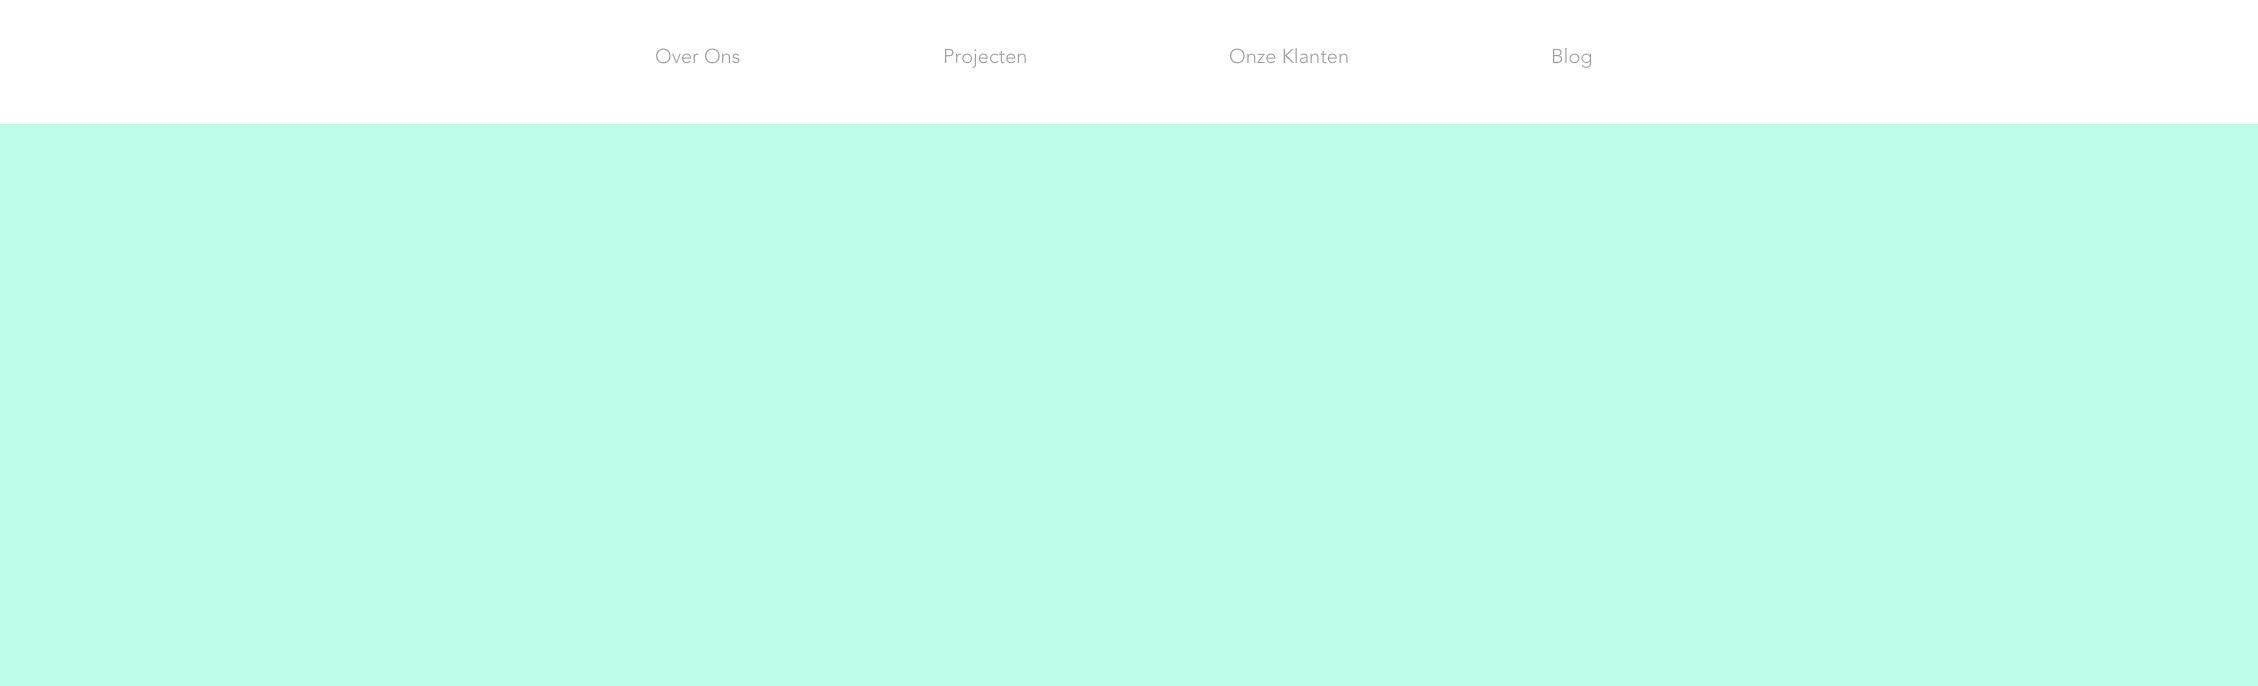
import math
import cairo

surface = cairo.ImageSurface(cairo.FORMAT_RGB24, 2258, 686)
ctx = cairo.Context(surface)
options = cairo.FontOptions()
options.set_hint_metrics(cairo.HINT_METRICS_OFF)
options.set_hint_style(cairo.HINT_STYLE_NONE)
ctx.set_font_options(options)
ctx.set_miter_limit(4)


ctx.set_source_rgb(1, 1, 1)
ctx.paint()
ctx.select_font_face("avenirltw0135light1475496 Light")
ctx.set_font_size(20)
ctx.set_source_rgb(0.627, 0.627, 0.624)
ctx.move_to(655, 63)
ctx.show_text("Over Ons")
ctx.move_to(943, 63)
ctx.show_text("Projecten")
ctx.move_to(1229, 63)
ctx.show_text("Onze Klanten")
ctx.move_to(1551, 63)
ctx.show_text("Blog")
ctx.set_source_rgb(0.745, 0.992, 0.918)
ctx.rectangle(0, 124, 2258, 562)
ctx.fill()
surface.write_to_png("page.png")
